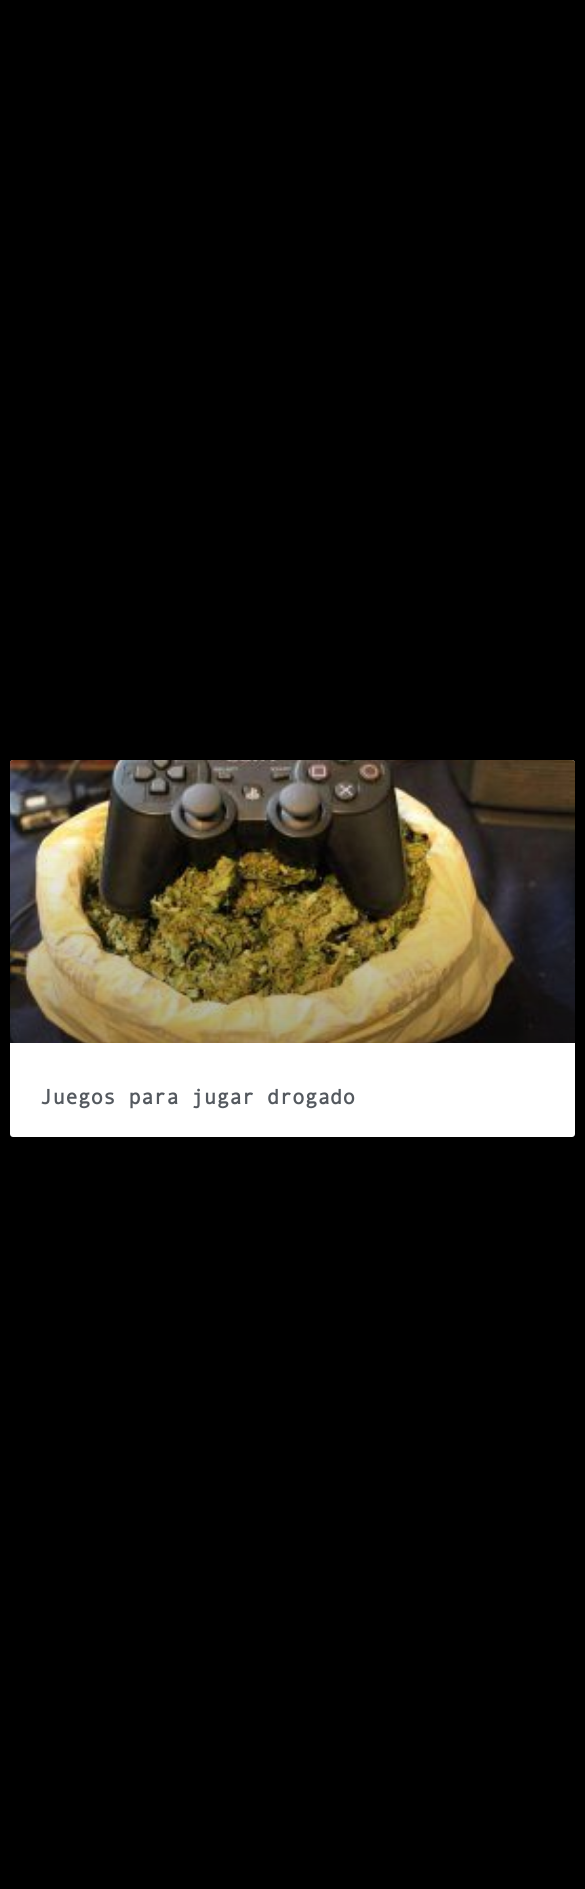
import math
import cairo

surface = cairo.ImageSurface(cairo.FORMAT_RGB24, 585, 1889)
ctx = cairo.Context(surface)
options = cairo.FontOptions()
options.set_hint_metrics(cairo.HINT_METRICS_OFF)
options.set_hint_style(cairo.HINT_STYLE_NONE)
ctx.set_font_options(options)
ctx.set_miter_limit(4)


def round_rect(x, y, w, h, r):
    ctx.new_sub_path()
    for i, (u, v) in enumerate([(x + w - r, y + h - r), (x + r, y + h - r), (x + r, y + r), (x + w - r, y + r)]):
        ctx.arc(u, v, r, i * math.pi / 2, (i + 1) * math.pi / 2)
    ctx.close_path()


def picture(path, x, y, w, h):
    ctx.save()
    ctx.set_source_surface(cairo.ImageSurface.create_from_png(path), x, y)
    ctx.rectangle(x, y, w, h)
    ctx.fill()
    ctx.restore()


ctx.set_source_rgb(0, 0, 0)
ctx.paint()
ctx.set_source_rgb(1, 1, 1)
round_rect(10, 760, 565, 377, 3)
ctx.fill()
picture("img1.png", 10, 760, 565, 283)
gradient = cairo.LinearGradient(293, 1043, 293, 760)
gradient.add_color_stop_rgba(0, 0, 0, 0, 0.35)
gradient.add_color_stop_rgba(0.75, 0, 0, 0, 0)
ctx.set_source(gradient)
ctx.rectangle(10, 844, 565, 199)
ctx.fill()
ctx.select_font_face("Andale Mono", cairo.FONT_SLANT_NORMAL, cairo.FONT_WEIGHT_BOLD)
ctx.set_font_size(21)
ctx.set_source_rgb(0.329, 0.349, 0.373)
ctx.move_to(40, 1104)
ctx.show_text("Juegos para jugar drogado")
surface.write_to_png("page.png")
